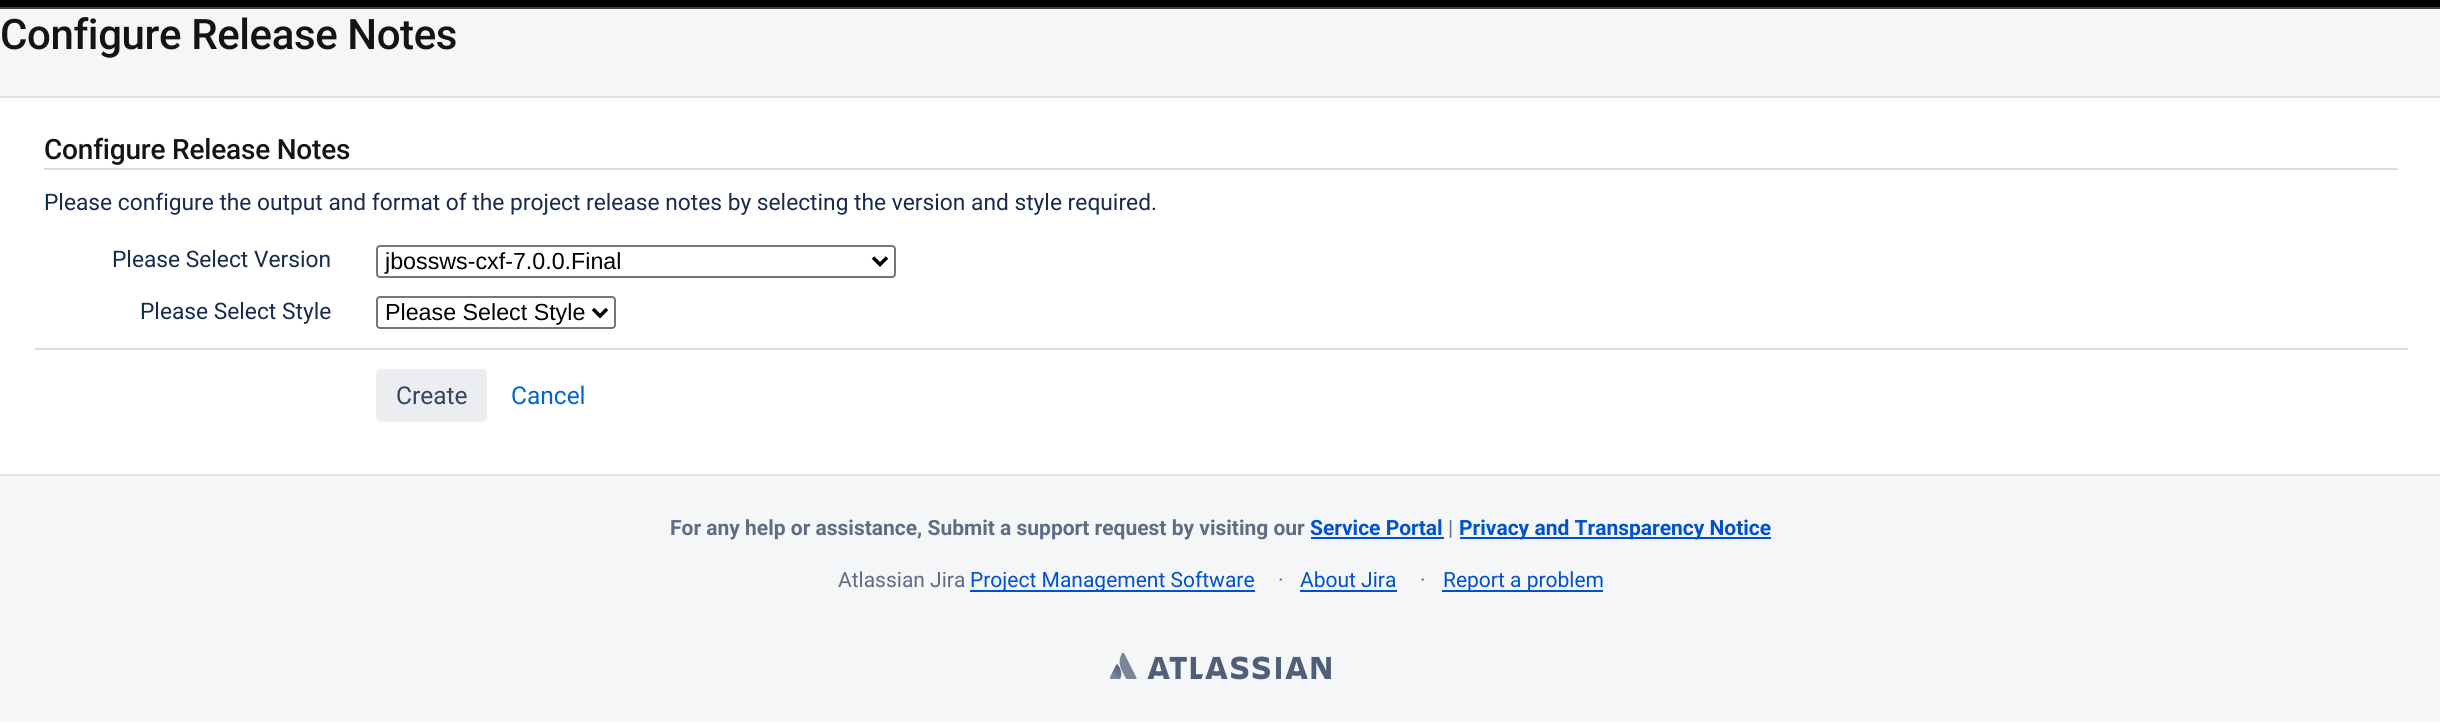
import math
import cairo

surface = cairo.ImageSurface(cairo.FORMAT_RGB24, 2440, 722)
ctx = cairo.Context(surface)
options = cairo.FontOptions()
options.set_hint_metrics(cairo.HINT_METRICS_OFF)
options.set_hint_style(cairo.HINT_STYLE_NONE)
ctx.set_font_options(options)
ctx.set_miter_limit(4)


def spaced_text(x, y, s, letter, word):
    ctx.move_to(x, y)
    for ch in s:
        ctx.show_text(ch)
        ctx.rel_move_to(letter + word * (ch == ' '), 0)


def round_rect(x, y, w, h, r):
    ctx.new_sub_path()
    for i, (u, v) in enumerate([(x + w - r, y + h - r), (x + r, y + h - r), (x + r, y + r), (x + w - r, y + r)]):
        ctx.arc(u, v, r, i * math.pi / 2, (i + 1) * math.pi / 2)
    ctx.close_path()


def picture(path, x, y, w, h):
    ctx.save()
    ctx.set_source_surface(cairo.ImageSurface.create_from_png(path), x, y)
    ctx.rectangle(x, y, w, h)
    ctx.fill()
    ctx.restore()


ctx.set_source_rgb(0.957, 0.961, 0.969)
ctx.paint()
ctx.set_source_rgb(0, 0, 0)
ctx.rectangle(0, 0, 2440, 7)
ctx.fill()
ctx.set_source_rgb(0.235, 0.247, 0.259)
ctx.rectangle(0, 7, 2440, 2)
ctx.fill()
ctx.select_font_face("Roboto Medium")
ctx.set_font_size(42)
ctx.set_source_rgb(0.082, 0.082, 0.082)
spaced_text(0, 49, "Configure Release Notes", -0.4, 0)
ctx.set_source_rgb(1, 1, 1)
ctx.rectangle(0, 98, 2440, 376)
ctx.fill()
ctx.set_source_rgb(0.875, 0.882, 0.902)
ctx.rectangle(0, 96, 2440, 2)
ctx.fill()
ctx.rectangle(0, 474, 2440, 2)
ctx.fill()
ctx.set_source_rgb(0.867, 0.867, 0.867)
ctx.rectangle(44, 168, 2354, 2)
ctx.fill()
ctx.set_font_size(28)
ctx.set_source_rgb(0.082, 0.082, 0.082)
spaced_text(44, 159, "Configure Release Notes", -0.2, 0)
ctx.select_font_face("Roboto")
ctx.set_font_size(22.75)
ctx.set_source_rgb(0.09, 0.169, 0.302)
ctx.move_to(44, 210)
ctx.show_text("Please configure the output and format of the project release notes by selecting the version and style required.")
ctx.move_to(112, 267)
ctx.show_text("Please Select Version")
round_rect(377, 246, 518, 31, 3)
ctx.set_source_rgb(0.463, 0.463, 0.463)
ctx.stroke()
ctx.new_path()
ctx.move_to(873, 257.5)
ctx.line_to(880, 264.5)
ctx.line_to(887, 257.5)
ctx.set_source_rgb(0, 0, 0)
ctx.set_line_width(3.5)
ctx.stroke()
ctx.select_font_face("Liberation Sans")
ctx.set_font_size(23.25)
ctx.move_to(385, 269)
ctx.show_text("jbossws-cxf-7.0.0.Final")
ctx.select_font_face("Roboto")
ctx.set_font_size(22.75)
ctx.set_source_rgb(0.09, 0.169, 0.302)
ctx.move_to(140, 319)
ctx.show_text("Please Select Style")
round_rect(377, 297, 238, 31, 3)
ctx.set_source_rgb(0.463, 0.463, 0.463)
ctx.set_line_width(2)
ctx.stroke()
ctx.new_path()
ctx.move_to(593, 309)
ctx.line_to(600, 316)
ctx.line_to(607, 309)
ctx.set_source_rgb(0, 0, 0)
ctx.set_line_width(3.5)
ctx.stroke()
ctx.select_font_face("Liberation Sans")
ctx.set_font_size(23.25)
ctx.move_to(385, 320)
ctx.show_text("Please Select Style")
ctx.set_source_rgb(0.867, 0.867, 0.867)
ctx.rectangle(35, 348, 2373, 2)
ctx.fill()
ctx.set_source_rgb(0.922, 0.929, 0.941)
round_rect(376, 369, 111, 53, 5)
ctx.fill()
ctx.select_font_face("Roboto")
ctx.set_font_size(24.5)
ctx.set_source_rgb(0.204, 0.271, 0.388)
ctx.move_to(396, 404)
ctx.show_text("Create")
ctx.set_source_rgb(0, 0.4, 0.8)
ctx.move_to(511, 404)
ctx.show_text("Cancel")
ctx.select_font_face("Roboto", cairo.FONT_SLANT_NORMAL, cairo.FONT_WEIGHT_BOLD)
ctx.set_font_size(21)
ctx.set_source_rgb(0.369, 0.424, 0.518)
ctx.move_to(670, 535)
ctx.show_text("For any help or assistance, Submit a support request by visiting our")
ctx.set_source_rgb(0, 0.322, 0.8)
ctx.move_to(1310, 535)
ctx.show_text("Service Portal")
ctx.rectangle(1311, 537, 133, 2)
ctx.fill()
ctx.select_font_face("Roboto")
ctx.set_source_rgb(0.369, 0.424, 0.518)
ctx.move_to(1448, 535)
ctx.show_text("|")
ctx.set_source_rgb(0, 0.322, 0.8)
ctx.rectangle(1460, 537, 311, 2)
ctx.fill()
ctx.select_font_face("Roboto", cairo.FONT_SLANT_NORMAL, cairo.FONT_WEIGHT_BOLD)
ctx.move_to(1459, 535)
ctx.show_text("Privacy and Transparency Notice")
ctx.select_font_face("Roboto")
ctx.set_source_rgb(0.369, 0.424, 0.518)
ctx.move_to(838, 587)
ctx.show_text("Atlassian Jira")
ctx.set_source_rgb(0, 0.322, 0.8)
ctx.rectangle(970, 590, 285, 2)
ctx.fill()
ctx.move_to(970, 587)
ctx.show_text("Project Management Software")
ctx.set_source_rgb(0.369, 0.424, 0.518)
ctx.move_to(1278, 587)
ctx.show_text("·")
ctx.set_source_rgb(0, 0.322, 0.8)
ctx.move_to(1300, 587)
ctx.show_text("About Jira")
ctx.rectangle(1300, 590, 97, 2)
ctx.fill()
ctx.set_source_rgb(0.369, 0.424, 0.518)
ctx.move_to(1420, 587)
ctx.show_text("·")
ctx.set_source_rgb(0, 0.322, 0.8)
ctx.rectangle(1442, 590, 161, 2)
ctx.fill()
ctx.move_to(1443, 587)
ctx.show_text("Report a problem")
picture("img1.png", 1110, 653, 221, 27)
surface.write_to_png("page.png")
